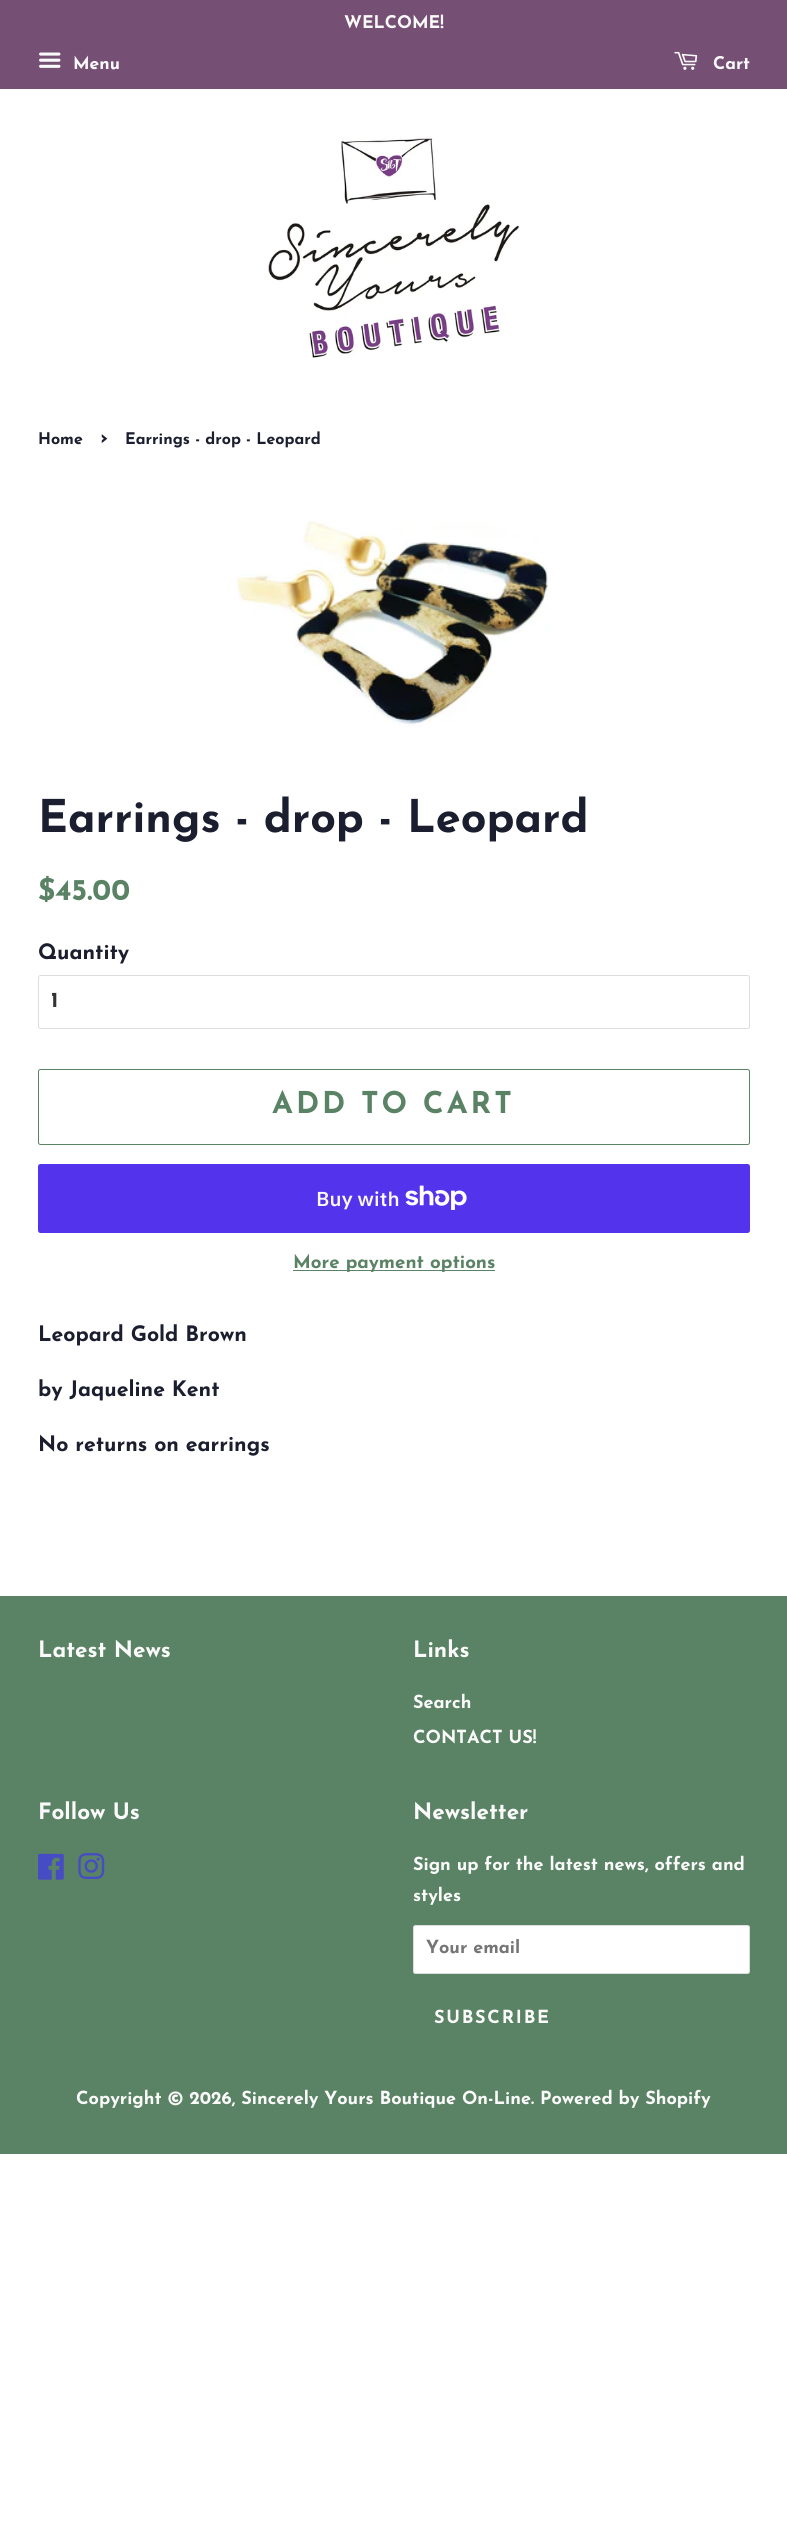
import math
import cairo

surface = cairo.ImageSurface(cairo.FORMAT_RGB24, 787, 2531)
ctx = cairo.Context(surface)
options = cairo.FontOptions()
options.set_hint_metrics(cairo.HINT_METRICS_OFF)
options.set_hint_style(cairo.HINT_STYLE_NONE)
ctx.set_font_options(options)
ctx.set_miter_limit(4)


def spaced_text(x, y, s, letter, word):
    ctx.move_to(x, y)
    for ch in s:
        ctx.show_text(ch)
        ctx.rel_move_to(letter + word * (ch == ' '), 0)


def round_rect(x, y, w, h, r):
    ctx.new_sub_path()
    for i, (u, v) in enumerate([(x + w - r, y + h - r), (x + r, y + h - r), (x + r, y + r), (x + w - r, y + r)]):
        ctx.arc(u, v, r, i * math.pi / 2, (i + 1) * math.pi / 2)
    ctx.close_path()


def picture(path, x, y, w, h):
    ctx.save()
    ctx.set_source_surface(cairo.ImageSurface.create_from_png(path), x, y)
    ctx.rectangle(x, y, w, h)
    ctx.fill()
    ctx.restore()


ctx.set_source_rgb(1, 1, 1)
ctx.paint()
ctx.set_source_rgb(0.463, 0.314, 0.455)
ctx.rectangle(0, 0, 787, 89)
ctx.fill()
ctx.select_font_face("Josefin Sans", cairo.FONT_SLANT_NORMAL, cairo.FONT_WEIGHT_BOLD)
ctx.set_font_size(17.5)
ctx.set_source_rgb(0.98, 0.98, 0.98)
ctx.move_to(344, 28)
ctx.show_text("WELCOME!")
picture("img1.png", 39, 52, 22, 16)
ctx.move_to(73, 69)
ctx.show_text("Menu")
picture("img2.png", 674, 51, 24, 19)
ctx.move_to(713, 69)
ctx.show_text("Cart")
picture("img3.png", 268, 138, 251, 220)
ctx.set_font_size(16)
ctx.set_source_rgb(0.106, 0.118, 0.184)
ctx.move_to(38, 444)
ctx.show_text("Home")
ctx.set_font_size(22)
ctx.move_to(100, 444)
ctx.show_text("›")
ctx.set_font_size(16)
ctx.move_to(125, 444)
ctx.show_text("Earrings - drop - Leopard")
picture("img4.png", 236, 521, 315, 206)
ctx.set_font_size(45)
ctx.move_to(38, 832)
ctx.show_text("Earrings - drop - Leopard")
ctx.set_font_size(30)
ctx.set_source_rgb(0.353, 0.51, 0.392)
ctx.move_to(38, 900)
ctx.show_text("$45.00")
ctx.set_font_size(21.25)
ctx.set_source_rgb(0.106, 0.118, 0.184)
ctx.move_to(38, 959)
ctx.show_text("Quantity")
round_rect(38.5, 975.5, 711, 53, 2)
ctx.set_source_rgb(0.867, 0.867, 0.878)
ctx.set_line_width(1)
ctx.stroke()
ctx.set_source_rgb(0.2, 0.2, 0.2)
ctx.move_to(51, 1007)
ctx.show_text("1")
round_rect(38.5, 1069.5, 711, 75, 2)
ctx.set_source_rgb(0.353, 0.51, 0.392)
ctx.stroke()
ctx.set_font_size(30)
spaced_text(272, 1113, "ADD TO CART", 3, 0)
ctx.set_source_rgb(0.329, 0.2, 0.922)
round_rect(38, 1164, 712, 69, 2.5)
ctx.fill()
ctx.select_font_face("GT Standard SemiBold")
ctx.set_font_size(20)
ctx.set_source_rgb(0.98, 0.98, 0.98)
ctx.move_to(316, 1206)
ctx.show_text("Buy with")
picture("img5.png", 405, 1185, 62, 25)
ctx.set_source_rgb(0.353, 0.51, 0.392)
ctx.rectangle(293, 1270, 202, 1)
ctx.fill()
ctx.select_font_face("Josefin Sans", cairo.FONT_SLANT_NORMAL, cairo.FONT_WEIGHT_BOLD)
ctx.set_font_size(18.75)
ctx.move_to(293, 1268)
ctx.show_text("More payment options")
ctx.set_font_size(21.25)
ctx.set_source_rgb(0.106, 0.118, 0.184)
ctx.move_to(38, 1341)
ctx.show_text("Leopard Gold Brown")
ctx.move_to(38, 1396)
ctx.show_text("by Jaqueline Kent")
ctx.move_to(38, 1451)
ctx.show_text("No returns on earrings")
ctx.set_source_rgb(0.353, 0.51, 0.392)
ctx.rectangle(0, 1596, 787, 558)
ctx.fill()
ctx.set_font_size(22.5)
ctx.set_source_rgb(0.98, 0.98, 0.98)
ctx.move_to(38, 1657)
ctx.show_text("Latest News")
ctx.move_to(413, 1657)
ctx.show_text("Links")
ctx.set_font_size(18.05)
ctx.move_to(413, 1708)
ctx.show_text("Search")
ctx.move_to(413, 1743)
ctx.show_text("CONTACT US!")
ctx.set_font_size(22.5)
ctx.move_to(38, 1819)
ctx.show_text("Follow Us")
picture("img6.png", 38, 1853, 26, 27)
picture("img7.png", 78, 1853, 27, 26)
ctx.move_to(413, 1819)
ctx.show_text("Newsletter")
ctx.set_font_size(18.05)
ctx.move_to(413, 1870)
ctx.show_text("Sign up for the latest news, offers and")
ctx.move_to(413, 1901)
ctx.show_text("styles")
ctx.set_source_rgb(1, 1, 1)
round_rect(413, 1925, 337, 49, 2.5)
ctx.fill()
round_rect(413.5, 1925.5, 336, 48, 2)
ctx.set_source_rgba(0.106, 0.118, 0.184, 0.15)
ctx.stroke()
ctx.save()
ctx.rectangle(426, 1939, 310, 19)
ctx.clip()
ctx.set_source_rgb(0.459, 0.459, 0.459)
ctx.move_to(426, 1953)
ctx.show_text("Your email")
ctx.restore()
ctx.set_source_rgb(0.98, 0.98, 0.98)
spaced_text(434, 2023, "SUBSCRIBE", 1.75, 0)
ctx.move_to(76, 2104)
ctx.show_text("Copyright © 2026, Sincerely Yours Boutique On-Line. Powered by Shopify")
surface.write_to_png("page.png")
